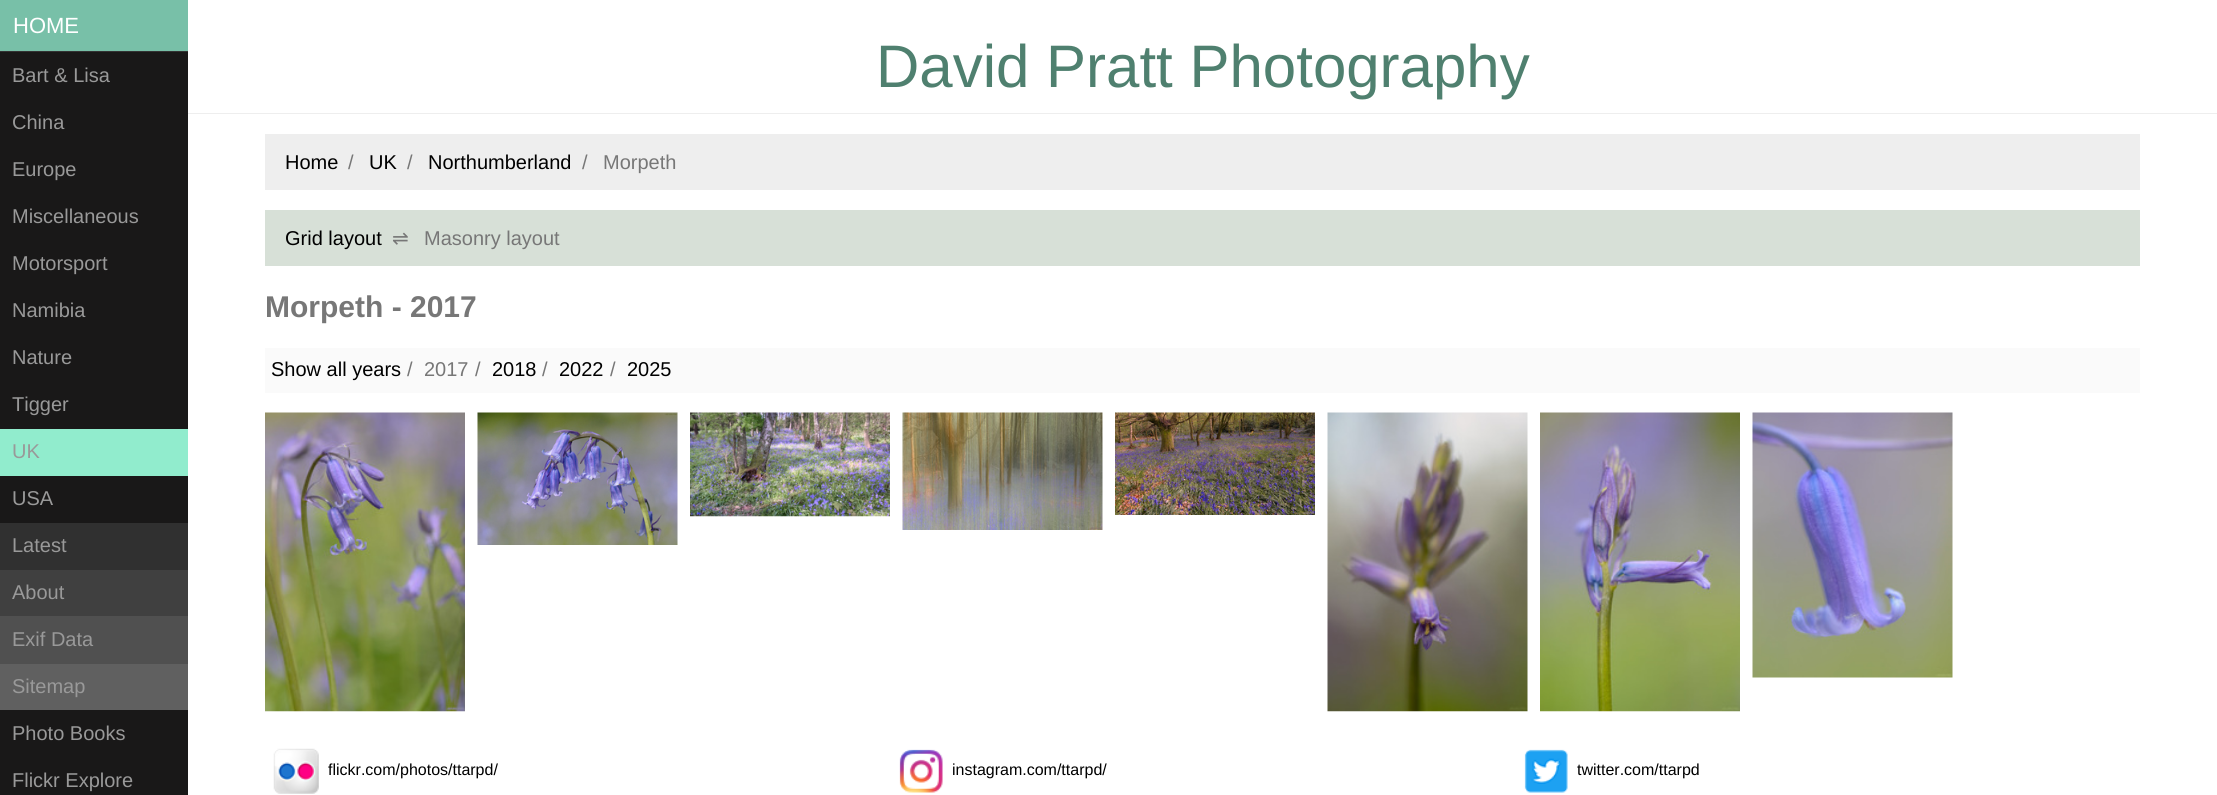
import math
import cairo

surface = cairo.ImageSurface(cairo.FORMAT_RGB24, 2217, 795)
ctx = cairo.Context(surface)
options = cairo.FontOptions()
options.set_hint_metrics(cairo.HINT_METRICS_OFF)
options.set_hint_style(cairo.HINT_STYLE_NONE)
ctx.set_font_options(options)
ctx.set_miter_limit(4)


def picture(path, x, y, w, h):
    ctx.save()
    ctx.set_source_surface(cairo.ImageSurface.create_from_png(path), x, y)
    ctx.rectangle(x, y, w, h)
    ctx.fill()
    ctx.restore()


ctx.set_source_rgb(1, 1, 1)
ctx.paint()
ctx.set_source_rgb(0.098, 0.094, 0.094)
ctx.rectangle(0, 52, 188, 743)
ctx.fill()
ctx.set_source_rgb(0.471, 0.753, 0.659)
ctx.rectangle(0, 0, 188, 51)
ctx.fill()
ctx.select_font_face("Liberation Sans")
ctx.set_font_size(22)
ctx.set_source_rgb(1, 1, 1)
ctx.move_to(13, 33)
ctx.show_text("HOME")
ctx.set_source_rgb(0.2, 0.2, 0.2)
ctx.rectangle(0, 51, 188, 1)
ctx.fill()
ctx.set_font_size(20)
ctx.set_source_rgb(0.6, 0.6, 0.6)
ctx.move_to(12, 82)
ctx.show_text("Bart & Lisa")
ctx.move_to(12, 129)
ctx.show_text("China")
ctx.move_to(12, 176)
ctx.show_text("Europe")
ctx.move_to(12, 223)
ctx.show_text("Miscellaneous")
ctx.move_to(12, 270)
ctx.show_text("Motorsport")
ctx.move_to(12, 317)
ctx.show_text("Namibia")
ctx.move_to(12, 364)
ctx.show_text("Nature")
ctx.move_to(12, 411)
ctx.show_text("Tigger")
ctx.set_source_rgb(0.569, 0.922, 0.804)
ctx.rectangle(0, 429, 188, 47)
ctx.fill()
ctx.set_source_rgb(0.6, 0.6, 0.6)
ctx.move_to(12, 458)
ctx.show_text("UK")
ctx.move_to(12, 505)
ctx.show_text("USA")
ctx.set_source_rgb(0.188, 0.188, 0.188)
ctx.rectangle(0, 523, 188, 47)
ctx.fill()
ctx.set_source_rgb(0.6, 0.6, 0.6)
ctx.move_to(12, 552)
ctx.show_text("Latest")
ctx.set_source_rgb(0.251, 0.251, 0.251)
ctx.rectangle(0, 570, 188, 46)
ctx.fill()
ctx.set_source_rgb(0.6, 0.6, 0.6)
ctx.move_to(12, 599)
ctx.show_text("About")
ctx.set_source_rgb(0.314, 0.314, 0.314)
ctx.rectangle(0, 616, 188, 48)
ctx.fill()
ctx.set_source_rgb(0.6, 0.6, 0.6)
ctx.move_to(12, 646)
ctx.show_text("Exif Data")
ctx.set_source_rgb(0.376, 0.376, 0.376)
ctx.rectangle(0, 664, 188, 46)
ctx.fill()
ctx.set_source_rgb(0.6, 0.6, 0.6)
ctx.move_to(12, 693)
ctx.show_text("Sitemap")
ctx.move_to(12, 740)
ctx.show_text("Photo Books")
ctx.move_to(12, 787)
ctx.show_text("Flickr Explore")
ctx.set_source_rgb(0.933, 0.933, 0.933)
ctx.rectangle(188, 113, 2029, 1)
ctx.fill()
ctx.set_font_size(60)
ctx.set_source_rgb(0.31, 0.502, 0.435)
ctx.move_to(876, 87)
ctx.show_text("David Pratt Photography")
ctx.set_source_rgb(0.933, 0.933, 0.933)
ctx.rectangle(265, 134, 1875, 56)
ctx.fill()
ctx.set_font_size(20)
ctx.set_source_rgb(0, 0, 0)
ctx.move_to(285, 169)
ctx.show_text("Home")
ctx.set_source_rgb(0.467, 0.467, 0.467)
ctx.move_to(348, 169)
ctx.show_text("/")
ctx.set_source_rgb(0, 0, 0)
ctx.move_to(369, 169)
ctx.show_text("UK")
ctx.set_source_rgb(0.467, 0.467, 0.467)
ctx.move_to(407, 169)
ctx.show_text("/")
ctx.set_source_rgb(0, 0, 0)
ctx.move_to(428, 169)
ctx.show_text("Northumberland")
ctx.set_source_rgb(0.467, 0.467, 0.467)
ctx.move_to(582, 169)
ctx.show_text("/")
ctx.move_to(603, 169)
ctx.show_text("Morpeth")
ctx.set_source_rgb(0.843, 0.878, 0.843)
ctx.rectangle(265, 210, 1875, 56)
ctx.fill()
ctx.set_source_rgb(0, 0, 0)
ctx.move_to(285, 245)
ctx.show_text("Grid layout")
ctx.select_font_face("DejaVu Sans")
ctx.set_source_rgb(0.467, 0.467, 0.467)
ctx.move_to(392, 245)
ctx.show_text("⇌")
ctx.select_font_face("Liberation Sans")
ctx.move_to(424, 245)
ctx.show_text("Masonry layout")
ctx.select_font_face("Liberation Sans", cairo.FONT_SLANT_NORMAL, cairo.FONT_WEIGHT_BOLD)
ctx.set_font_size(30)
ctx.move_to(265, 317)
ctx.show_text("Morpeth - 2017")
ctx.set_source_rgb(0.98, 0.98, 0.98)
ctx.rectangle(265, 348, 1875, 45)
ctx.fill()
ctx.select_font_face("Liberation Sans")
ctx.set_font_size(20)
ctx.set_source_rgb(0, 0, 0)
ctx.move_to(271, 376)
ctx.show_text("Show all years")
ctx.set_source_rgb(0.467, 0.467, 0.467)
ctx.move_to(407, 376)
ctx.show_text("/")
ctx.move_to(424, 376)
ctx.show_text("2017")
ctx.move_to(475, 376)
ctx.show_text("/")
ctx.set_source_rgb(0, 0, 0)
ctx.move_to(492, 376)
ctx.show_text("2018")
ctx.set_source_rgb(0.467, 0.467, 0.467)
ctx.move_to(542, 376)
ctx.show_text("/")
ctx.set_source_rgb(0, 0, 0)
ctx.move_to(559, 376)
ctx.show_text("2022")
ctx.set_source_rgb(0.467, 0.467, 0.467)
ctx.move_to(610, 376)
ctx.show_text("/")
ctx.set_source_rgb(0, 0, 0)
ctx.move_to(627, 376)
ctx.show_text("2025")
picture("img1.png", 265, 412, 200, 300)
picture("img2.png", 477, 412, 201, 133)
picture("img3.png", 690, 412, 200, 105)
picture("img4.png", 902, 412, 201, 118)
picture("img5.png", 1115, 412, 200, 103)
picture("img6.png", 1327, 412, 201, 300)
picture("img7.png", 1540, 412, 200, 300)
picture("img8.png", 1752, 412, 201, 266)
picture("img9.png", 273, 748, 46, 46)
ctx.set_font_size(16)
ctx.move_to(328, 775)
ctx.show_text("flickr.com/photos/ttarpd/")
picture("img10.png", 899, 749, 44, 44)
ctx.move_to(952, 775)
ctx.show_text("instagram.com/ttarpd/")
picture("img11.png", 1524, 749, 44, 44)
ctx.move_to(1577, 775)
ctx.show_text("twitter.com/ttarpd")
surface.write_to_png("page.png")
